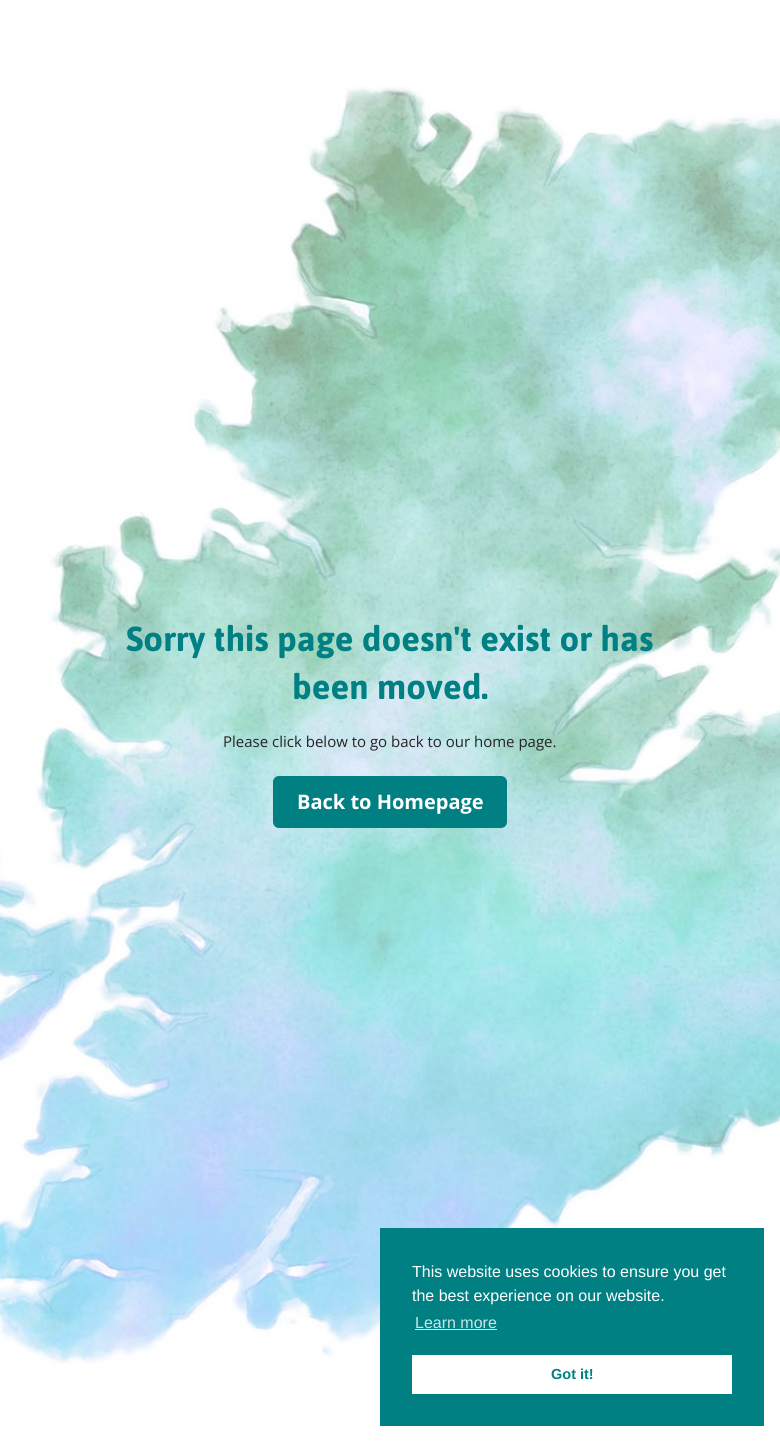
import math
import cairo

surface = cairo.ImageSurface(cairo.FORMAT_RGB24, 780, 1442)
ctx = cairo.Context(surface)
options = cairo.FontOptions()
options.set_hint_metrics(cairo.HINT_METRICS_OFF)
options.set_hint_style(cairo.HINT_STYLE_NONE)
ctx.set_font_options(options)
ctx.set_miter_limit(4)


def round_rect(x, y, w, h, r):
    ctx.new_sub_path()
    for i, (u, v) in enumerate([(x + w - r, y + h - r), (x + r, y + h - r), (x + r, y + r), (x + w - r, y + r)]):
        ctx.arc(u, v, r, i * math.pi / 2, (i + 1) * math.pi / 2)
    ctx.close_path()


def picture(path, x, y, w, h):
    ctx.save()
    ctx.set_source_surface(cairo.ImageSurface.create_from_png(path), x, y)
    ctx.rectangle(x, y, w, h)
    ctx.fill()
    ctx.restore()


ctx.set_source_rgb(1, 1, 1)
ctx.paint()
picture("img1.png", 0, 86, 780, 1278)
ctx.select_font_face("Jaldi", cairo.FONT_SLANT_NORMAL, cairo.FONT_WEIGHT_BOLD)
ctx.set_font_size(40)
ctx.set_source_rgb(0, 0.502, 0.514)
ctx.move_to(126, 651)
ctx.show_text("Sorry this page doesn't exist or has")
ctx.move_to(292, 699)
ctx.show_text("been moved.")
ctx.select_font_face("Open Sans")
ctx.set_font_size(15)
ctx.set_source_rgb(0.141, 0.141, 0.141)
ctx.move_to(223, 747)
ctx.show_text("Please click below to go back to our home page.")
ctx.set_source_rgb(0, 0.502, 0.514)
round_rect(273, 776, 234, 52, 6)
ctx.fill()
ctx.select_font_face("Open Sans", cairo.FONT_SLANT_NORMAL, cairo.FONT_WEIGHT_BOLD)
ctx.set_font_size(20)
ctx.set_source_rgb(1, 1, 1)
ctx.move_to(297, 809)
ctx.show_text("Back to Homepage")
ctx.set_source_rgb(0, 0.502, 0.514)
ctx.rectangle(380, 1228, 384, 198)
ctx.fill()
ctx.select_font_face("Liberation Sans")
ctx.set_font_size(16)
ctx.set_source_rgb(1, 1, 1)
ctx.move_to(412, 1277)
ctx.show_text("This website uses cookies to ensure you get")
ctx.move_to(412, 1301)
ctx.show_text("the best experience on our website.")
ctx.set_source_rgb(0.8, 0.902, 0.902)
ctx.move_to(415, 1328)
ctx.show_text("Learn more")
ctx.rectangle(415, 1329, 82, 1)
ctx.fill()
ctx.set_source_rgb(1, 1, 1)
ctx.rectangle(412, 1355, 320, 39)
ctx.fill()
ctx.select_font_face("Liberation Sans", cairo.FONT_SLANT_NORMAL, cairo.FONT_WEIGHT_BOLD)
ctx.set_font_size(14.5)
ctx.set_source_rgb(0, 0.502, 0.514)
ctx.move_to(551, 1379)
ctx.show_text("Got it!")
surface.write_to_png("page.png")
